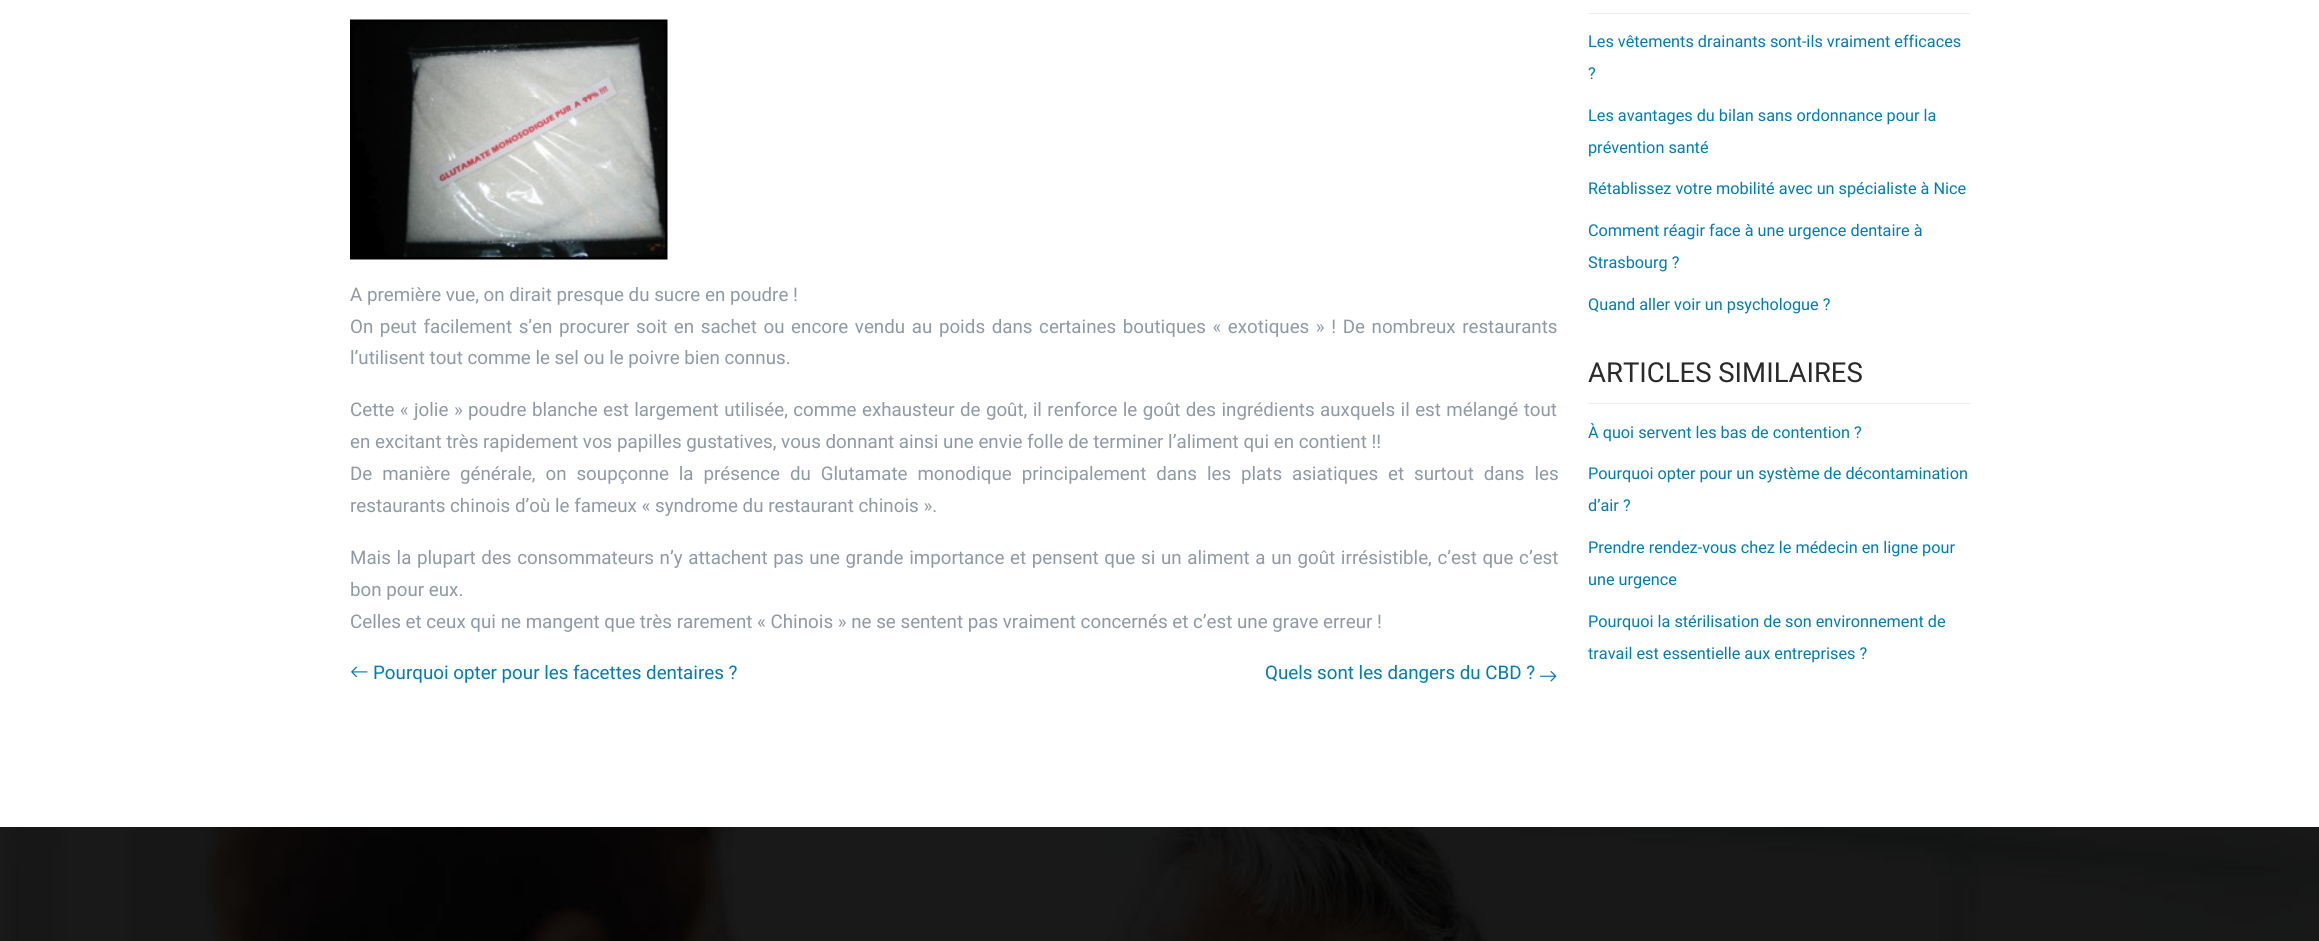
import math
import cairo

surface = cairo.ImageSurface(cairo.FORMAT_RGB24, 2319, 941)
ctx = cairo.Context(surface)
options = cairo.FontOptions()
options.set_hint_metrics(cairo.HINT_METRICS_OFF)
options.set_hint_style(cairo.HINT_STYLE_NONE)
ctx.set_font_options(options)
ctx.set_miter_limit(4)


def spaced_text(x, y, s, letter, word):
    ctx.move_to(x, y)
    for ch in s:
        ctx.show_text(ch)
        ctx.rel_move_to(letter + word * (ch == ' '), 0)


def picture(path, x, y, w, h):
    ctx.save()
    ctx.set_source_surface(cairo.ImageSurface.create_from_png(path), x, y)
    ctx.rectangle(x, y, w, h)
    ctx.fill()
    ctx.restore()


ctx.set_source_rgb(1, 1, 1)
ctx.paint()
picture("img1.png", 350, 19, 318, 241)
ctx.select_font_face("Heebo")
ctx.set_font_size(18.75)
ctx.set_source_rgb(0.561, 0.604, 0.655)
ctx.move_to(350, 301)
ctx.show_text("A première vue, on dirait presque du sucre en poudre !")
spaced_text(350, 333, "On peut facilement s’en procurer soit en sachet ou encore vendu au poids dans certaines boutiques « exotiques » ! De nombreux restaurants", 0, 1.95)
ctx.move_to(350, 364)
ctx.show_text("l’utilisent tout comme le sel ou le poivre bien connus.")
spaced_text(350, 416, "Cette « jolie » poudre blanche est largement utilisée, comme exhausteur de goût, il renforce le goût des ingrédients auxquels il est mélangé tout", 0, 0.75)
ctx.move_to(350, 448)
ctx.show_text("en excitant très rapidement vos papilles gustatives, vous donnant ainsi une envie folle de terminer l’aliment qui en contient !!")
spaced_text(350, 480, "De manière générale, on soupçonne la présence du Glutamate monodique principalement dans les plats asiatiques et surtout dans les", 0, 5.25)
ctx.move_to(350, 512)
ctx.show_text("restaurants chinois d’où le fameux « syndrome du restaurant chinois ».")
spaced_text(350, 564, "Mais la plupart des consommateurs n’y attachent pas une grande importance et pensent que si un aliment a un goût irrésistible, c’est que c’est", 0, 1)
ctx.move_to(350, 596)
ctx.show_text("bon pour eux.")
ctx.move_to(350, 628)
ctx.show_text("Celles et ceux qui ne mangent que très rarement « Chinois » ne se sentent pas vraiment concernés et c’est une grave erreur !")
picture("img2.png", 351, 666, 17, 12)
ctx.set_source_rgb(0, 0.486, 0.725)
ctx.move_to(373, 679)
ctx.show_text("Pourquoi opter pour les facettes dentaires ?")
ctx.move_to(1265, 679)
ctx.show_text("Quels sont les dangers du CBD ?")
picture("img3.png", 1540, 671, 17, 11)
ctx.set_source_rgb(0.925, 0.925, 0.925)
ctx.rectangle(1588, 13, 382, 1)
ctx.fill()
ctx.set_font_size(16.25)
ctx.set_source_rgb(0, 0.486, 0.725)
ctx.move_to(1588, 47)
ctx.show_text("Les vêtements drainants sont-ils vraiment efficaces")
ctx.move_to(1588, 79)
ctx.show_text("?")
ctx.move_to(1588, 121)
ctx.show_text("Les avantages du bilan sans ordonnance pour la")
ctx.move_to(1588, 153)
ctx.show_text("prévention santé")
ctx.move_to(1588, 194)
ctx.show_text("Rétablissez votre mobilité avec un spécialiste à Nice")
ctx.move_to(1588, 236)
ctx.show_text("Comment réagir face à une urgence dentaire à")
ctx.move_to(1588, 268)
ctx.show_text("Strasbourg ?")
ctx.move_to(1588, 310)
ctx.show_text("Quand aller voir un psychologue ?")
ctx.set_source_rgb(0.925, 0.925, 0.925)
ctx.rectangle(1588, 403, 382, 1)
ctx.fill()
ctx.set_font_size(27.5)
ctx.set_source_rgb(0.165, 0.165, 0.165)
ctx.move_to(1588, 382)
ctx.show_text("ARTICLES SIMILAIRES")
ctx.set_font_size(16.25)
ctx.set_source_rgb(0, 0.486, 0.725)
ctx.move_to(1588, 438)
ctx.show_text("À quoi servent les bas de contention ?")
ctx.move_to(1588, 479)
ctx.show_text("Pourquoi opter pour un système de décontamination")
ctx.move_to(1588, 511)
ctx.show_text("d’air ?")
ctx.move_to(1588, 553)
ctx.show_text("Prendre rendez-vous chez le médecin en ligne pour")
ctx.move_to(1588, 585)
ctx.show_text("une urgence")
ctx.move_to(1588, 627)
ctx.show_text("Pourquoi la stérilisation de son environnement de")
ctx.move_to(1588, 659)
ctx.show_text("travail est essentielle aux entreprises ?")
picture("img4.png", 0, 827, 2319, 114)
surface.write_to_png("page.png")
